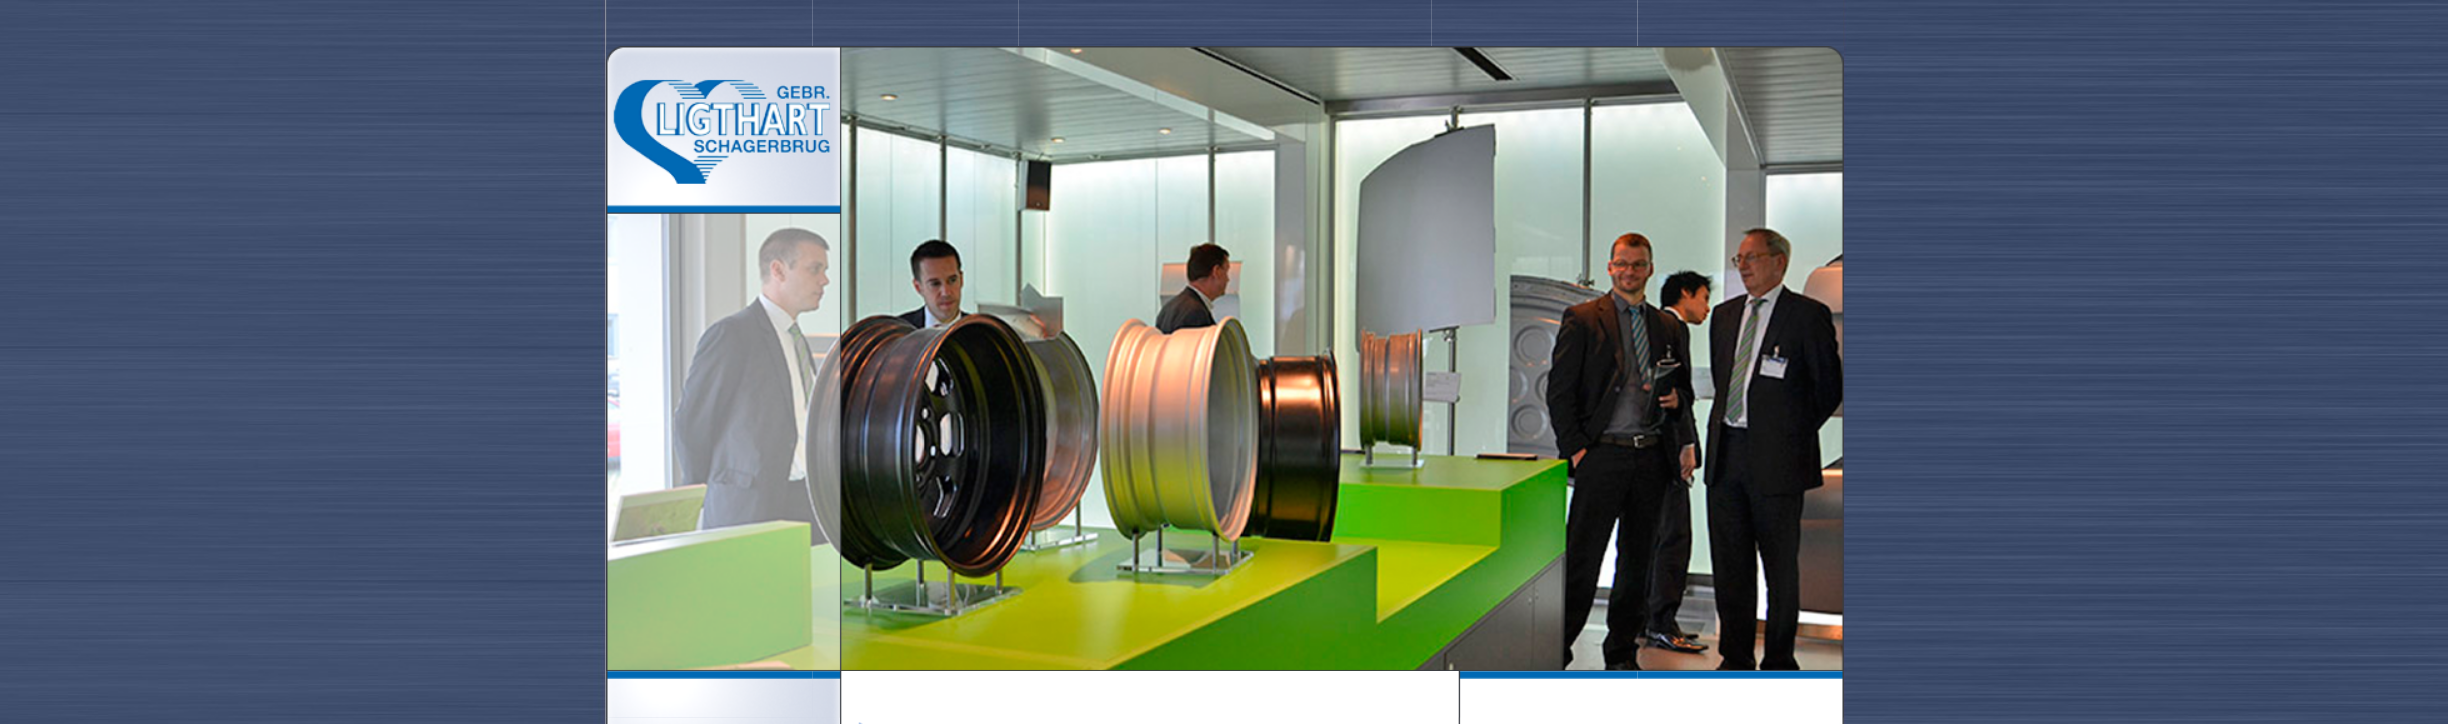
import math
import cairo

surface = cairo.ImageSurface(cairo.FORMAT_RGB24, 2448, 724)
ctx = cairo.Context(surface)
options = cairo.FontOptions()
options.set_hint_metrics(cairo.HINT_METRICS_OFF)
options.set_hint_style(cairo.HINT_STYLE_NONE)
ctx.set_font_options(options)
ctx.set_miter_limit(4)


def picture(path, x, y, w, h):
    ctx.save()
    ctx.set_source_surface(cairo.ImageSurface.create_from_png(path), x, y)
    ctx.rectangle(x, y, w, h)
    ctx.fill()
    ctx.restore()


ctx.set_source_rgb(1, 1, 1)
ctx.paint()
picture("img1.png", 0, 0, 2448, 724)
picture("img2.png", 606, 0, 1238, 724)
picture("img3.png", 606, 0, 207, 46)
picture("img4.png", 812, 0, 207, 46)
picture("img5.png", 1018, 0, 207, 46)
picture("img6.png", 1225, 0, 207, 46)
picture("img7.png", 1431, 0, 207, 46)
picture("img8.png", 1637, 0, 207, 46)
picture("img9.png", 606, 46, 1238, 625)
picture("img10.png", 607, 47, 1236, 624)
picture("img11.png", 606, 671, 207, 47)
picture("img12.png", 812, 671, 29, 47)
picture("img13.png", 1458, 671, 180, 47)
picture("img14.png", 1637, 671, 207, 47)
picture("img15.png", 606, 717, 234, 7)
picture("img16.png", 858, 722, 5, 2)
surface.write_to_png("page.png")
